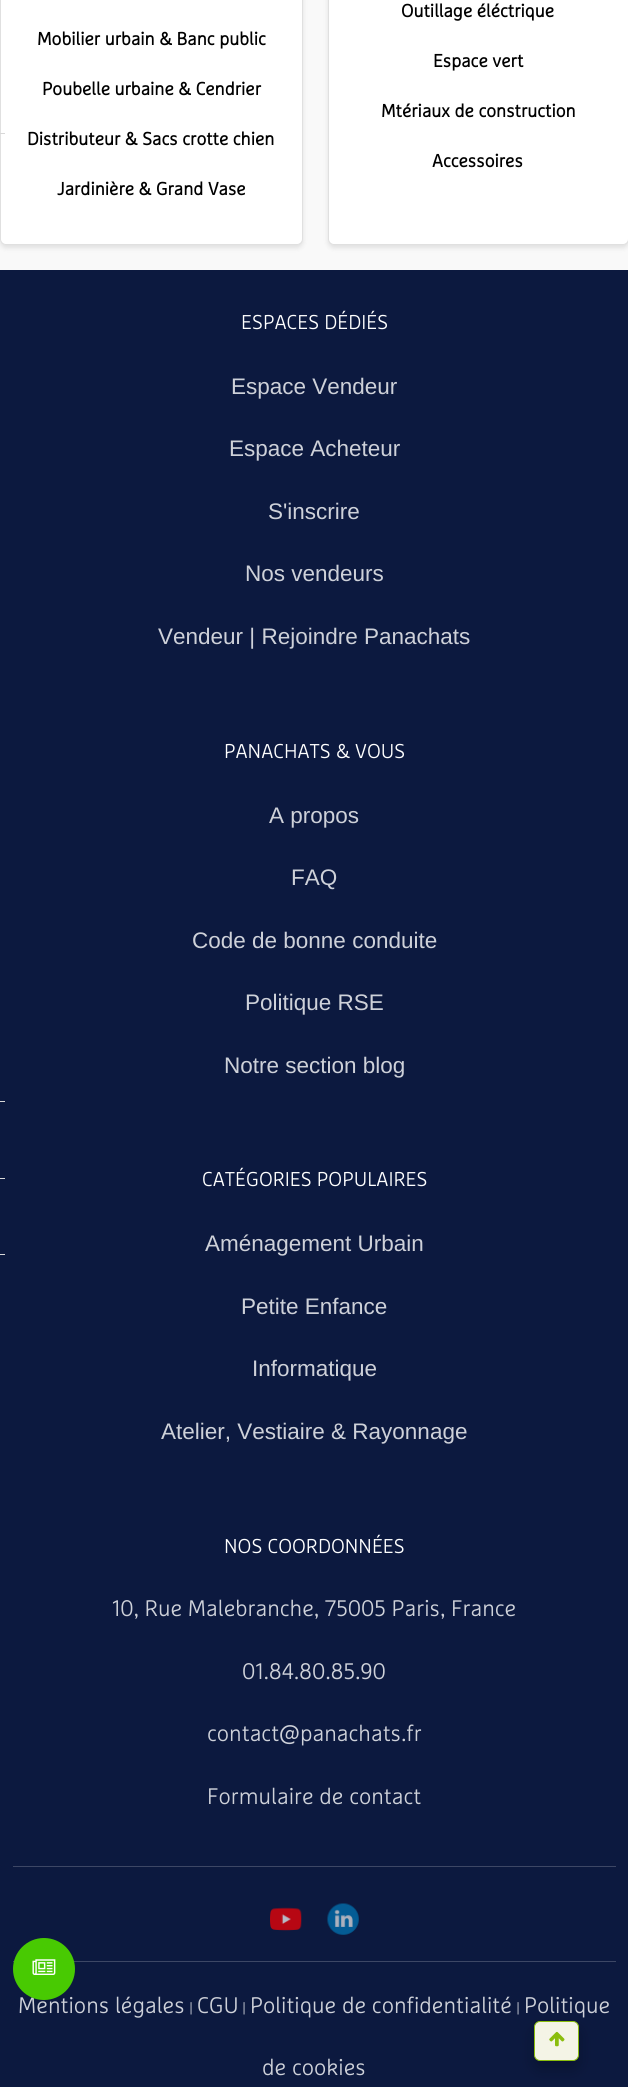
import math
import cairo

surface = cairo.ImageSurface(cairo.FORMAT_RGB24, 628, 2087)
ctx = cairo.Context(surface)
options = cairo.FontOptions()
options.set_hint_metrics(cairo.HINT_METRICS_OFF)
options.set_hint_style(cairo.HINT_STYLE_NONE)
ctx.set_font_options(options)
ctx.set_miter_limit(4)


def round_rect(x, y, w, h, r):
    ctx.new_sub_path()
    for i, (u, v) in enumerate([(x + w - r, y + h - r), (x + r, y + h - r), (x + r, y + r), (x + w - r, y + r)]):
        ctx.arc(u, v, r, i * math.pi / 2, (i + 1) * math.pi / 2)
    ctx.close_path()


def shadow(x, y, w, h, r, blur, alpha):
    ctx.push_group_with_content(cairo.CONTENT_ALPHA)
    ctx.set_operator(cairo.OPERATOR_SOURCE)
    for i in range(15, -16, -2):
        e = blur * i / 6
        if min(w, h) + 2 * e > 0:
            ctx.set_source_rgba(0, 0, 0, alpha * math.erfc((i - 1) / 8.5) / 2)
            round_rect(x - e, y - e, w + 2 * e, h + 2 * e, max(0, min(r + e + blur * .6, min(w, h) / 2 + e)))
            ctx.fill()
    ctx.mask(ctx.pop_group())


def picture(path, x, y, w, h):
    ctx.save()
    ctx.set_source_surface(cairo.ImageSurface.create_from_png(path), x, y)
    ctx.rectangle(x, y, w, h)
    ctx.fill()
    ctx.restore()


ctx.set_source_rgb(0.973, 0.973, 0.973)
ctx.paint()
ctx.set_source_rgb(0, 0, 0)
shadow(0, -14, 303, 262, 6, 2.5, 0.1)
ctx.set_source_rgb(1, 1, 1)
round_rect(0.5, -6.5, 302, 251, 5.5)
ctx.fill_preserve()
ctx.set_source_rgb(0.878, 0.878, 0.878)
ctx.set_line_width(1)
ctx.stroke()
ctx.set_source_rgb(0.847, 0.847, 0.847)
ctx.rectangle(0, 133, 5, 1)
ctx.fill()
ctx.set_source_rgb(0.047, 0.098, 0.247)
ctx.rectangle(0, 270, 628, 1817)
ctx.fill()
ctx.set_source_rgb(0.847, 0.847, 0.847)
ctx.rectangle(0, 1101, 5, 1)
ctx.fill()
ctx.rectangle(0, 1178, 5, 1)
ctx.fill()
ctx.rectangle(0, 1254, 5, 1)
ctx.fill()
ctx.select_font_face("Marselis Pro", cairo.FONT_SLANT_NORMAL, cairo.FONT_WEIGHT_BOLD)
ctx.set_font_size(18)
ctx.set_source_rgb(0, 0, 0)
ctx.move_to(37, 45)
ctx.show_text("Mobilier urbain & Banc public")
ctx.move_to(42, 95)
ctx.show_text("Poubelle urbaine & Cendrier")
ctx.move_to(27, 145)
ctx.show_text("Distributeur & Sacs crotte chien")
ctx.move_to(57, 195)
ctx.show_text("Jardinière & Grand Vase")
ctx.set_source_rgb(0, 0, 0)
shadow(328, -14, 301, 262, 6, 2.5, 0.1)
ctx.set_source_rgb(1, 1, 1)
round_rect(328.5, -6.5, 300, 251, 5.5)
ctx.fill_preserve()
ctx.set_source_rgb(0.878, 0.878, 0.878)
ctx.stroke()
ctx.set_source_rgb(0, 0, 0)
ctx.move_to(401, 17)
ctx.show_text("Outillage éléctrique")
ctx.move_to(433, 67)
ctx.show_text("Espace vert")
ctx.move_to(381, 117)
ctx.show_text("Mtériaux de construction")
ctx.move_to(432, 167)
ctx.show_text("Accessoires")
ctx.set_source_rgb(0.239, 0.278, 0.396)
ctx.rectangle(13, 1961, 603, 1)
ctx.fill()
ctx.select_font_face("Marselis Pro Light")
ctx.set_font_size(22.5)
ctx.set_source_rgb(0.808, 0.82, 0.851)
ctx.move_to(18, 2013)
ctx.show_text("Mentions légales")
ctx.set_source_rgb(0.282, 0.792, 0.008)
ctx.new_path()
ctx.arc(44, 1969, 31, 0, 2 * math.pi)
ctx.fill()
picture("img1.png", 32, 1959, 24, 16)
ctx.set_source_rgb(0, 0, 0)
shadow(534, 2029, 45, 40, 6, 8, 0.23)
ctx.set_source_rgb(0.957, 0.957, 0.902)
round_rect(534.5, 2021.5, 44, 39, 5.5)
ctx.fill_preserve()
ctx.set_source_rgb(0.541, 0.741, 0.051)
ctx.stroke()
picture("img2.png", 549, 2031, 16, 16)
ctx.set_source_rgb(0.239, 0.278, 0.396)
ctx.rectangle(13, 1866, 603, 1)
ctx.fill()
ctx.set_font_size(20)
ctx.set_source_rgb(1, 1, 1)
ctx.move_to(241, 329)
ctx.show_text("ESPACES DÉDIÉS")
ctx.select_font_face("Liberation Sans")
ctx.set_font_size(22.5)
ctx.set_source_rgb(0.808, 0.82, 0.851)
ctx.move_to(231, 394)
ctx.show_text("Espace Vendeur")
ctx.move_to(229, 456)
ctx.show_text("Espace Acheteur")
ctx.move_to(268, 519)
ctx.show_text("S'inscrire")
ctx.move_to(245, 581)
ctx.show_text("Nos vendeurs")
ctx.move_to(158, 644)
ctx.show_text("Vendeur | Rejoindre Panachats")
ctx.select_font_face("Marselis Pro Light")
ctx.set_font_size(20)
ctx.set_source_rgb(1, 1, 1)
ctx.move_to(224, 758)
ctx.show_text("PANACHATS & VOUS")
ctx.select_font_face("Liberation Sans")
ctx.set_font_size(22.5)
ctx.set_source_rgb(0.808, 0.82, 0.851)
ctx.move_to(269, 823)
ctx.show_text("A propos")
ctx.move_to(291, 885)
ctx.show_text("FAQ")
ctx.move_to(192, 948)
ctx.show_text("Code de bonne conduite")
ctx.move_to(245, 1010)
ctx.show_text("Politique RSE")
ctx.move_to(224, 1073)
ctx.show_text("Notre section blog")
ctx.select_font_face("Marselis Pro Light")
ctx.set_font_size(20)
ctx.set_source_rgb(1, 1, 1)
ctx.move_to(202, 1186)
ctx.show_text("CATÉGORIES POPULAIRES")
ctx.select_font_face("Liberation Sans")
ctx.set_font_size(22.5)
ctx.set_source_rgb(0.808, 0.82, 0.851)
ctx.move_to(205, 1251)
ctx.show_text("Aménagement Urbain")
ctx.move_to(241, 1314)
ctx.show_text("Petite Enfance")
ctx.move_to(252, 1376)
ctx.show_text("Informatique")
ctx.move_to(161, 1439)
ctx.show_text("Atelier, Vestiaire & Rayonnage")
ctx.select_font_face("Marselis Pro Light")
ctx.set_font_size(20)
ctx.set_source_rgb(1, 1, 1)
ctx.move_to(224, 1553)
ctx.show_text("NOS COORDONNÉES")
ctx.set_font_size(22.5)
ctx.set_source_rgb(0.808, 0.82, 0.851)
ctx.move_to(112, 1616)
ctx.show_text("10, Rue Malebranche, 75005 Paris, France")
ctx.move_to(242, 1679)
ctx.show_text("01.84.80.85.90")
ctx.move_to(207, 1741)
ctx.show_text("contact@panachats.fr")
ctx.move_to(207, 1804)
ctx.show_text("Formulaire de contact")
picture("img3.png", 270, 1907, 32, 24)
picture("img4.png", 327, 1903, 32, 32)
ctx.set_font_size(15)
ctx.move_to(189, 2013)
ctx.show_text("|")
ctx.set_font_size(22.5)
ctx.move_to(197, 2013)
ctx.show_text("CGU")
ctx.set_font_size(15)
ctx.move_to(242, 2013)
ctx.show_text("|")
ctx.set_font_size(22.5)
ctx.move_to(250, 2013)
ctx.show_text("Politique de confidentialité")
ctx.set_font_size(15)
ctx.move_to(516, 2013)
ctx.show_text("|")
ctx.set_font_size(22.5)
ctx.move_to(524, 2013)
ctx.show_text("Politique")
ctx.move_to(262, 2075)
ctx.show_text("de cookies")
surface.write_to_png("page.png")
